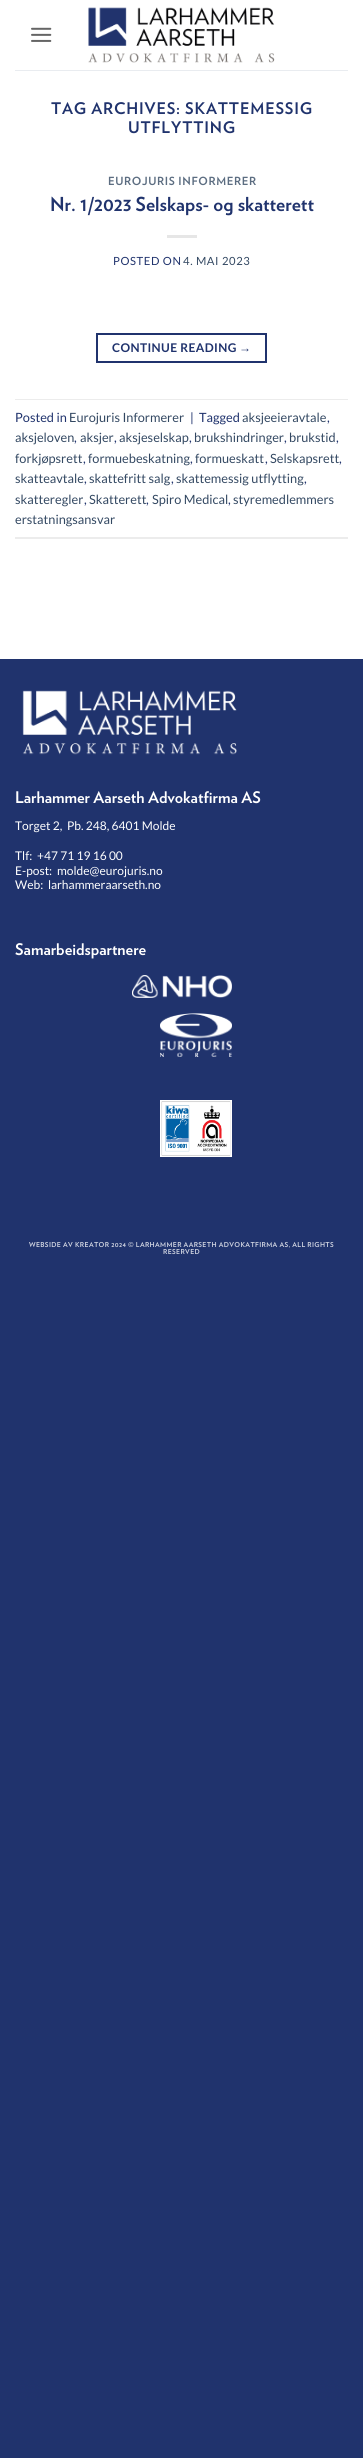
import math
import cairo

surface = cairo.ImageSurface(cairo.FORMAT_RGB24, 363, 2458)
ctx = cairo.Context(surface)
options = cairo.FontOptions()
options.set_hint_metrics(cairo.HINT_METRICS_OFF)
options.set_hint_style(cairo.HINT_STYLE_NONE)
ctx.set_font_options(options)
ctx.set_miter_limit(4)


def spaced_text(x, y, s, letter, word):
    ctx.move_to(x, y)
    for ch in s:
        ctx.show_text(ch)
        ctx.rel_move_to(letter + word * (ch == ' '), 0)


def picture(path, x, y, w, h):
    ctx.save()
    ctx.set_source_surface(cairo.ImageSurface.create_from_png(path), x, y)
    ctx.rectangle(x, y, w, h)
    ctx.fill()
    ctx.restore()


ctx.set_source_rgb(0.125, 0.2, 0.427)
ctx.paint()
ctx.set_source_rgb(1, 1, 1)
ctx.rectangle(0, 0, 363, 659)
ctx.fill()
picture("img1.png", 31, 27, 21, 15)
picture("img2.png", 88, 7, 187, 56)
ctx.set_source_rgb(0.914, 0.922, 0.941)
ctx.rectangle(15, 70, 333, 1)
ctx.fill()
ctx.select_font_face("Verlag", cairo.FONT_SLANT_NORMAL, cairo.FONT_WEIGHT_BOLD)
ctx.set_font_size(16)
ctx.set_source_rgb(0.125, 0.2, 0.427)
spaced_text(51, 114, "TAG ARCHIVES: SKATTEMESSIG", 0.8, 0)
spaced_text(128, 133, "UTFLYTTING", 0.8, 0)
ctx.set_font_size(11.25)
ctx.set_source_rgb(0.361, 0.427, 0.506)
spaced_text(108, 185, "EUROJURIS INFORMERER", 0.6, 0)
ctx.set_font_size(19.25)
ctx.set_source_rgb(0.125, 0.2, 0.427)
ctx.move_to(50, 211)
ctx.show_text("Nr. 1/2023 Selskaps- og skatterett")
ctx.set_source_rgb(0.902, 0.902, 0.902)
ctx.rectangle(167, 235, 30, 3)
ctx.fill()
ctx.select_font_face("Lato")
ctx.set_font_size(11.25)
ctx.set_source_rgb(0.125, 0.2, 0.427)
spaced_text(113, 265, "POSTED ON", 0.6, 0)
ctx.set_source_rgb(0.2, 0.282, 0.384)
spaced_text(183, 265, "4. MAI 2023", 0.6, 0)
ctx.rectangle(97, 334, 169, 28)
ctx.set_source_rgb(0.125, 0.2, 0.427)
ctx.stroke()
ctx.select_font_face("Lato", cairo.FONT_SLANT_NORMAL, cairo.FONT_WEIGHT_BOLD)
ctx.set_font_size(12)
spaced_text(112, 352, "CONTINUE READING", 0.4, 0)
ctx.select_font_face("Liberation Sans", cairo.FONT_SLANT_NORMAL, cairo.FONT_WEIGHT_BOLD)
spaced_text(239, 352, "→", 0.4, 0)
ctx.set_source_rgb(0.925, 0.925, 0.925)
ctx.rectangle(15, 399, 333, 1)
ctx.fill()
ctx.rectangle(15, 537, 333, 2)
ctx.fill()
ctx.select_font_face("Lato")
ctx.set_font_size(12.75)
ctx.set_source_rgb(0.125, 0.2, 0.427)
ctx.move_to(15, 422)
ctx.show_text("Posted in")
ctx.set_source_rgb(0.2, 0.282, 0.384)
ctx.move_to(69, 422)
ctx.show_text("Eurojuris Informerer")
ctx.set_source_rgb(0.125, 0.2, 0.427)
ctx.move_to(190, 422)
ctx.show_text("|")
ctx.move_to(199, 422)
ctx.show_text("Tagged")
ctx.set_source_rgb(0.2, 0.282, 0.384)
ctx.move_to(242, 422)
ctx.show_text("aksjeeieravtale")
ctx.set_source_rgb(0.125, 0.2, 0.427)
ctx.move_to(327, 422)
ctx.show_text(",")
ctx.set_source_rgb(0.2, 0.282, 0.384)
ctx.move_to(15, 442)
ctx.show_text("aksjeloven")
ctx.set_source_rgb(0.125, 0.2, 0.427)
ctx.move_to(74, 442)
ctx.show_text(",")
ctx.set_source_rgb(0.2, 0.282, 0.384)
ctx.move_to(80, 442)
ctx.show_text("aksjer")
ctx.set_source_rgb(0.125, 0.2, 0.427)
ctx.move_to(114, 442)
ctx.show_text(",")
ctx.set_source_rgb(0.2, 0.282, 0.384)
ctx.move_to(119, 442)
ctx.show_text("aksjeselskap")
ctx.set_source_rgb(0.125, 0.2, 0.427)
ctx.move_to(189, 442)
ctx.show_text(",")
ctx.set_source_rgb(0.2, 0.282, 0.384)
ctx.move_to(194, 442)
ctx.show_text("brukshindringer")
ctx.set_source_rgb(0.125, 0.2, 0.427)
ctx.move_to(284, 442)
ctx.show_text(",")
ctx.set_source_rgb(0.2, 0.282, 0.384)
ctx.move_to(289, 442)
ctx.show_text("brukstid")
ctx.set_source_rgb(0.125, 0.2, 0.427)
ctx.move_to(336, 442)
ctx.show_text(",")
ctx.set_source_rgb(0.2, 0.282, 0.384)
ctx.move_to(15, 463)
ctx.show_text("forkjøpsrett")
ctx.set_source_rgb(0.125, 0.2, 0.427)
ctx.move_to(83, 463)
ctx.show_text(",")
ctx.set_source_rgb(0.2, 0.282, 0.384)
ctx.move_to(88, 463)
ctx.show_text("formuebeskatning")
ctx.set_source_rgb(0.125, 0.2, 0.427)
ctx.move_to(190, 463)
ctx.show_text(",")
ctx.set_source_rgb(0.2, 0.282, 0.384)
ctx.move_to(195, 463)
ctx.show_text("formueskatt")
ctx.set_source_rgb(0.125, 0.2, 0.427)
ctx.move_to(265, 463)
ctx.show_text(",")
ctx.set_source_rgb(0.2, 0.282, 0.384)
ctx.move_to(270, 463)
ctx.show_text("Selskapsrett")
ctx.set_source_rgb(0.125, 0.2, 0.427)
ctx.move_to(339, 463)
ctx.show_text(",")
ctx.set_source_rgb(0.2, 0.282, 0.384)
ctx.move_to(15, 483)
ctx.show_text("skatteavtale")
ctx.set_source_rgb(0.125, 0.2, 0.427)
ctx.move_to(84, 483)
ctx.show_text(",")
ctx.set_source_rgb(0.2, 0.282, 0.384)
ctx.move_to(89, 483)
ctx.show_text("skattefritt salg")
ctx.set_source_rgb(0.125, 0.2, 0.427)
ctx.move_to(171, 483)
ctx.show_text(",")
ctx.set_source_rgb(0.2, 0.282, 0.384)
ctx.move_to(176, 483)
ctx.show_text("skattemessig utflytting")
ctx.set_source_rgb(0.125, 0.2, 0.427)
ctx.move_to(304, 483)
ctx.show_text(",")
ctx.set_source_rgb(0.2, 0.282, 0.384)
ctx.move_to(15, 504)
ctx.show_text("skatteregler")
ctx.set_source_rgb(0.125, 0.2, 0.427)
ctx.move_to(84, 504)
ctx.show_text(",")
ctx.set_source_rgb(0.2, 0.282, 0.384)
ctx.move_to(89, 504)
ctx.show_text("Skatterett")
ctx.set_source_rgb(0.125, 0.2, 0.427)
ctx.move_to(146, 504)
ctx.show_text(",")
ctx.set_source_rgb(0.2, 0.282, 0.384)
ctx.move_to(152, 504)
ctx.show_text("Spiro Medical")
ctx.set_source_rgb(0.125, 0.2, 0.427)
ctx.move_to(228, 504)
ctx.show_text(",")
ctx.set_source_rgb(0.2, 0.282, 0.384)
ctx.move_to(233, 504)
ctx.show_text("styremedlemmers")
ctx.move_to(15, 524)
ctx.show_text("erstatningsansvar")
picture("img3.png", 22, 690, 215, 65)
ctx.select_font_face("Verlag", cairo.FONT_SLANT_NORMAL, cairo.FONT_WEIGHT_BOLD)
ctx.set_font_size(16)
ctx.set_source_rgb(1, 1, 1)
ctx.move_to(15, 803)
ctx.show_text("Larhammer Aarseth Advokatfirma AS")
ctx.select_font_face("Lato")
ctx.set_font_size(12)
ctx.move_to(15, 830)
ctx.show_text("Torget 2,  Pb. 248, 6401 Molde")
ctx.move_to(15, 860)
ctx.show_text("Tlf:")
ctx.move_to(37, 860)
ctx.show_text("+47 71 19 16 00")
ctx.move_to(15, 875)
ctx.show_text("E-post:")
ctx.move_to(57, 875)
ctx.show_text("molde@eurojuris.no")
ctx.move_to(15, 889)
ctx.show_text("Web:  larhammeraarseth.no")
ctx.select_font_face("Verlag", cairo.FONT_SLANT_NORMAL, cairo.FONT_WEIGHT_BOLD)
ctx.set_font_size(16)
ctx.move_to(15, 955)
ctx.show_text("Samarbeidspartnere")
picture("img4.png", 132, 975, 100, 23)
picture("img5.png", 160, 1013, 72, 44)
picture("img6.png", 160, 1100, 72, 57)
ctx.set_font_size(6.8)
ctx.set_source_rgb(0.824, 0.839, 0.886)
spaced_text(29, 1247, "WEBSIDE AV KREATOR 2024 © LARHAMMER AARSETH ADVOKATFIRMA AS, ALL RIGHTS", 0.35, 0)
spaced_text(163, 1254, "RESERVED", 0.35, 0)
surface.write_to_png("page.png")
